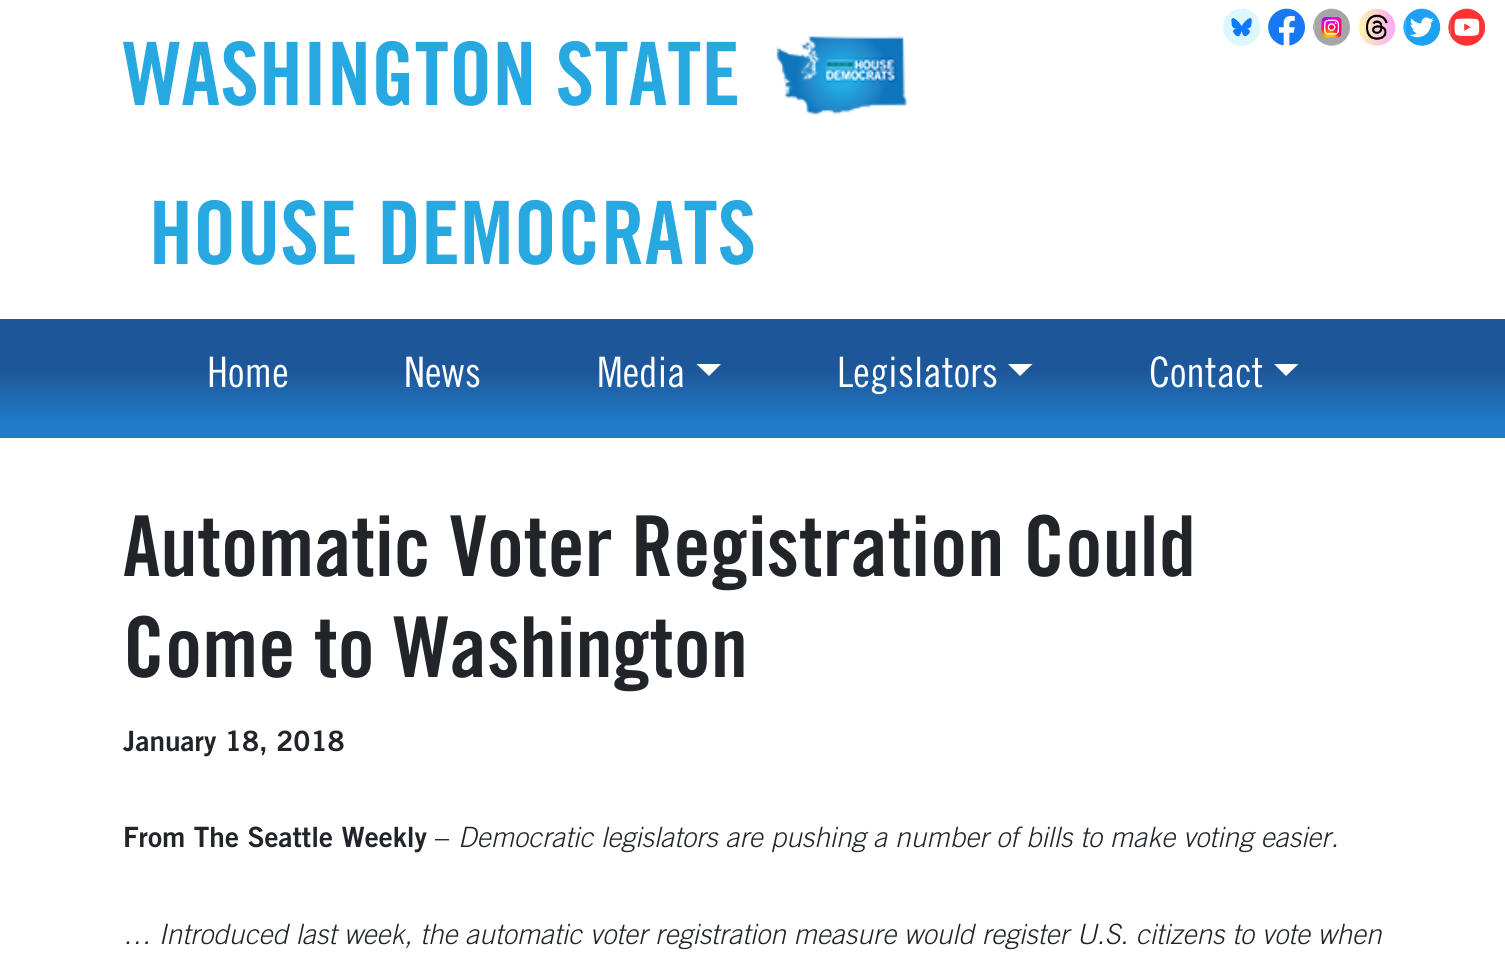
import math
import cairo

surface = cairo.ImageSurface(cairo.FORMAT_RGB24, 1505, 960)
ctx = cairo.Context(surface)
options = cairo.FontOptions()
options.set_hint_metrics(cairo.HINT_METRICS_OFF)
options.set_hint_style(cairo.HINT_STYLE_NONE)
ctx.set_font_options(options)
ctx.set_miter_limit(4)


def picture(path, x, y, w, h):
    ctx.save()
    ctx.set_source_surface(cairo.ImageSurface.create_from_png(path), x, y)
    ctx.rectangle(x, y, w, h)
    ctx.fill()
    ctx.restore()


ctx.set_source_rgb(1, 1, 1)
ctx.paint()
picture("img1.png", 1223, 8, 46, 38)
picture("img2.png", 1268, 8, 47, 38)
picture("img3.png", 1314, 8, 46, 38)
picture("img4.png", 1359, 8, 47, 38)
picture("img5.png", 1405, 8, 46, 38)
picture("img6.png", 1450, 8, 35, 38)
ctx.select_font_face("Trade Gothic", cairo.FONT_SLANT_NORMAL, cairo.FONT_WEIGHT_BOLD)
ctx.set_font_size(87.5)
ctx.set_source_rgb(0.157, 0.659, 0.878)
ctx.move_to(123, 105)
ctx.show_text("WASHINGTON STATE")
picture("img7.png", 776, 36, 131, 79)
ctx.move_to(149, 264)
ctx.show_text("HOUSE DEMOCRATS")
gradient = cairo.LinearGradient(753, 318, 753, 438)
gradient.add_color_stop_rgba(0.44, 0.118, 0.341, 0.6, 1)
gradient.add_color_stop_rgba(0.88, 0.125, 0.486, 0.792, 1)
ctx.set_source(gradient)
ctx.rectangle(0, 319, 1505, 119)
ctx.fill()
ctx.select_font_face("Trade Gothic")
ctx.set_font_size(42)
ctx.set_source_rgb(1, 1, 1)
ctx.move_to(207, 387)
ctx.show_text("Home")
ctx.move_to(404, 387)
ctx.show_text("News")
ctx.move_to(597, 387)
ctx.show_text("Media")
ctx.new_path()
ctx.move_to(696.5, 364)
ctx.line_to(721, 364)
ctx.line_to(709, 376)
ctx.close_path()
ctx.fill()
ctx.move_to(837, 387)
ctx.show_text("Legislators")
ctx.new_path()
ctx.move_to(1008, 364)
ctx.line_to(1032.5, 364)
ctx.line_to(1020, 376)
ctx.close_path()
ctx.fill()
ctx.move_to(1149, 387)
ctx.show_text("Contact")
ctx.new_path()
ctx.move_to(1274, 364)
ctx.line_to(1298.5, 364)
ctx.line_to(1286, 376)
ctx.close_path()
ctx.fill()
ctx.select_font_face("Trade Gothic", cairo.FONT_SLANT_NORMAL, cairo.FONT_WEIGHT_BOLD)
ctx.set_font_size(84)
ctx.set_source_rgb(0.129, 0.145, 0.161)
ctx.move_to(123, 576)
ctx.show_text("Automatic Voter Registration Could")
ctx.move_to(123, 677)
ctx.show_text("Come to Washington")
ctx.select_font_face("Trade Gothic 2", cairo.FONT_SLANT_NORMAL, cairo.FONT_WEIGHT_BOLD)
ctx.set_font_size(28)
ctx.move_to(123, 751)
ctx.show_text("January 18, 2018")
ctx.move_to(123, 847)
ctx.show_text("From The Seattle Weekly")
ctx.select_font_face("Trade Gothic 2")
ctx.move_to(435, 847)
ctx.show_text("–")
ctx.select_font_face("Trade Gothic Light", cairo.FONT_SLANT_ITALIC)
ctx.move_to(458, 847)
ctx.show_text("Democratic legislators are pushing a number of bills to make voting easier.")
ctx.move_to(123, 944)
ctx.show_text("… Introduced last week, the automatic voter registration measure would register U.S. citizens to vote when")
surface.write_to_png("page.png")
